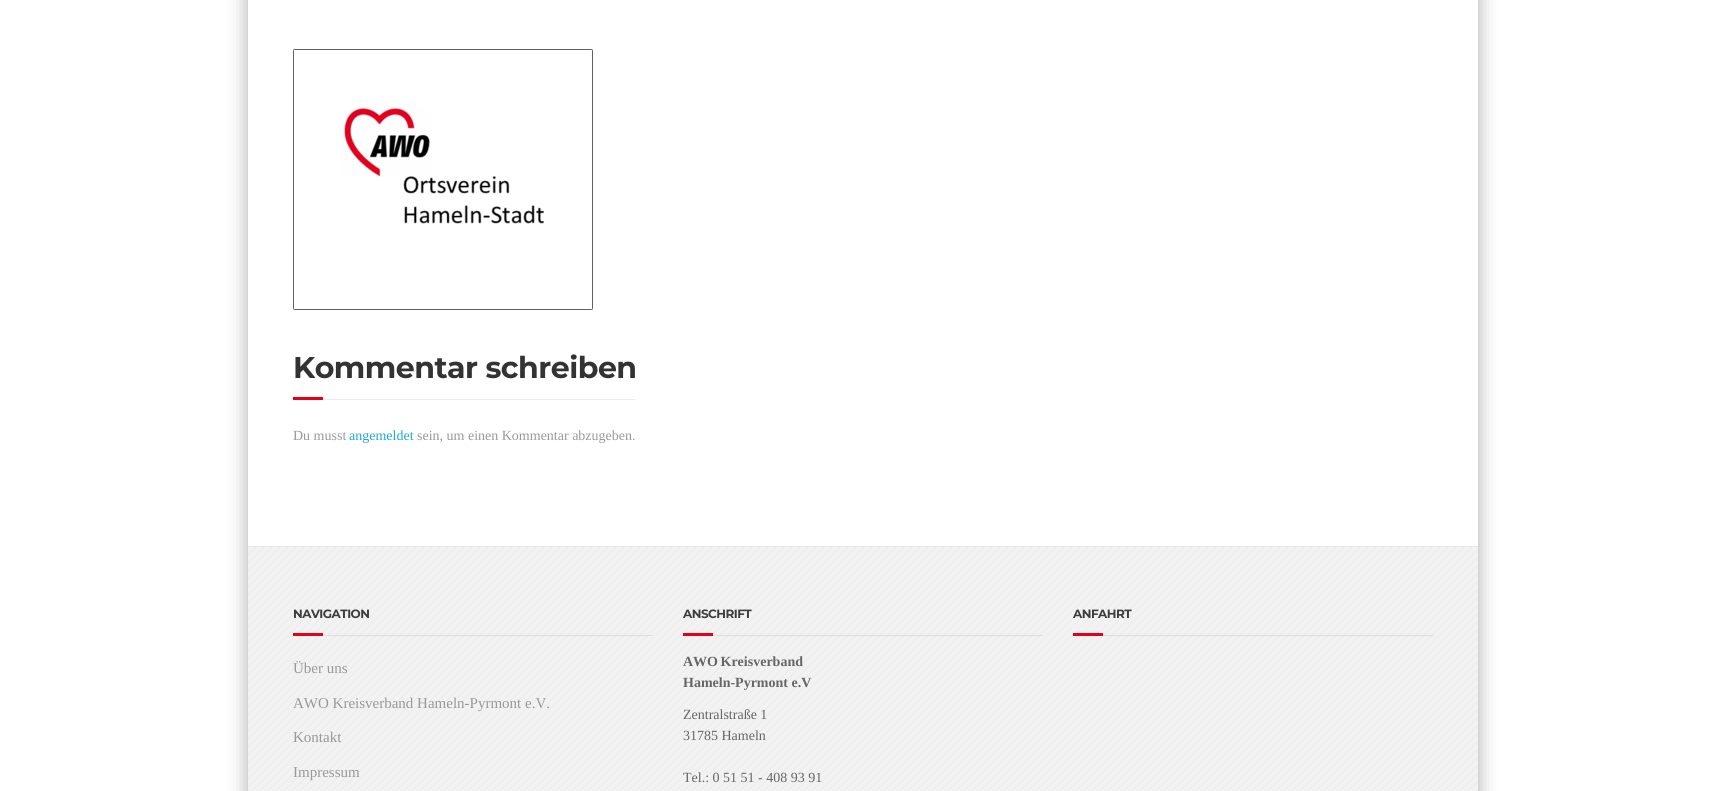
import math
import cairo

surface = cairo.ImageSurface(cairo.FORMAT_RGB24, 1725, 791)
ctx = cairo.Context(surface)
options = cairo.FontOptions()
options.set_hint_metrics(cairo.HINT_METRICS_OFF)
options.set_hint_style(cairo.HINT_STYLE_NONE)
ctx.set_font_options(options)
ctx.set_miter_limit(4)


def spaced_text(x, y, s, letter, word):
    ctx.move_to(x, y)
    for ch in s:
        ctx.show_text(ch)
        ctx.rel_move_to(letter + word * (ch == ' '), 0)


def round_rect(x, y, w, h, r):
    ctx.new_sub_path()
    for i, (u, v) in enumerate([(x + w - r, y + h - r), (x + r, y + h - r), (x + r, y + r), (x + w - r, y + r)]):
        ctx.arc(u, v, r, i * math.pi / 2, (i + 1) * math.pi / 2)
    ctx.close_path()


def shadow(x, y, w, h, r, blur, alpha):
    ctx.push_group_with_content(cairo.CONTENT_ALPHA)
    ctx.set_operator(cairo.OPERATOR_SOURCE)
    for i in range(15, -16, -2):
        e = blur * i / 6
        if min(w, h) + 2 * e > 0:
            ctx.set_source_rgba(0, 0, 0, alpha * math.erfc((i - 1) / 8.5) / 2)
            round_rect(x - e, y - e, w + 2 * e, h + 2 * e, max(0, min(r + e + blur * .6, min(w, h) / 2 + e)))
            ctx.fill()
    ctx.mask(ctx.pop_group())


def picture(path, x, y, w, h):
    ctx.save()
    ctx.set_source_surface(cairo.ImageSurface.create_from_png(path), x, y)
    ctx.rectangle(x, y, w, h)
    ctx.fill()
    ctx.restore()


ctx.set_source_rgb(1, 1, 1)
ctx.paint()
ctx.save()
ctx.set_fill_rule(cairo.FILL_RULE_EVEN_ODD)
ctx.new_path()
ctx.move_to(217, 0)
ctx.line_to(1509, 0)
ctx.line_to(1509, 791)
ctx.line_to(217, 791)
ctx.close_path()
ctx.move_to(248, -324)
ctx.line_to(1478, -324)
ctx.line_to(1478, 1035)
ctx.line_to(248, 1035)
ctx.close_path()
ctx.clip()
ctx.set_source_rgb(0, 0, 0)
shadow(248, -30, 1230, 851, 0, 10, 0.33)
ctx.restore()
picture("img1.png", 293, 49, 300, 261)
ctx.set_source_rgb(0.922, 0.922, 0.922)
ctx.rectangle(323, 399, 313, 1)
ctx.fill()
ctx.select_font_face("Montserrat", cairo.FONT_SLANT_NORMAL, cairo.FONT_WEIGHT_BOLD)
ctx.set_font_size(30)
ctx.set_source_rgb(0.2, 0.2, 0.2)
spaced_text(293, 378, "Kommentar schreiben", -0.5, 0)
ctx.set_source_rgb(0.89, 0, 0.106)
ctx.rectangle(293, 397, 30, 3)
ctx.fill()
ctx.select_font_face("Liberation Serif")
ctx.set_font_size(14)
ctx.set_source_rgb(0.6, 0.6, 0.6)
ctx.move_to(293, 440)
ctx.show_text("Du musst")
ctx.set_source_rgb(0.122, 0.655, 0.855)
ctx.move_to(349, 440)
ctx.show_text("angemeldet")
ctx.set_source_rgb(0.6, 0.6, 0.6)
ctx.move_to(417, 440)
ctx.show_text("sein, um einen Kommentar abzugeben.")
ctx.set_source_rgb(0.949, 0.949, 0.949)
ctx.rectangle(248, 547, 1230, 244)
ctx.fill()
picture("img2.png", 248, 547, 1230, 244)
ctx.set_source_rgb(0.902, 0.902, 0.902)
ctx.rectangle(248, 546, 1230, 1)
ctx.fill()
ctx.set_source_rgba(0, 0, 0, 0.08)
ctx.rectangle(323, 635, 330, 1)
ctx.fill()
ctx.select_font_face("Montserrat", cairo.FONT_SLANT_NORMAL, cairo.FONT_WEIGHT_BOLD)
ctx.set_font_size(12)
ctx.set_source_rgb(0.239, 0.239, 0.239)
spaced_text(293, 618, "NAVIGATION", -0.5, 0)
ctx.set_source_rgb(0.89, 0, 0.106)
ctx.rectangle(293, 633, 30, 3)
ctx.fill()
ctx.select_font_face("Liberation Serif")
ctx.set_font_size(15)
ctx.set_source_rgb(0.6, 0.6, 0.6)
ctx.move_to(293, 673)
ctx.show_text("Über uns")
ctx.move_to(293, 708)
ctx.show_text("AWO Kreisverband Hameln-Pyrmont e.V.")
ctx.move_to(293, 742)
ctx.show_text("Kontakt")
ctx.move_to(293, 777)
ctx.show_text("Impressum")
ctx.set_source_rgba(0, 0, 0, 0.08)
ctx.rectangle(713, 635, 330, 1)
ctx.fill()
ctx.select_font_face("Montserrat", cairo.FONT_SLANT_NORMAL, cairo.FONT_WEIGHT_BOLD)
ctx.set_font_size(12)
ctx.set_source_rgb(0.239, 0.239, 0.239)
spaced_text(683, 618, "ANSCHRIFT", -0.5, 0)
ctx.set_source_rgb(0.89, 0, 0.106)
ctx.rectangle(683, 633, 30, 3)
ctx.fill()
ctx.select_font_face("Liberation Serif", cairo.FONT_SLANT_NORMAL, cairo.FONT_WEIGHT_BOLD)
ctx.set_font_size(14)
ctx.set_source_rgb(0.4, 0.4, 0.4)
spaced_text(683, 666, "AWO Kreisverband", 0, -1)
ctx.move_to(683, 687)
ctx.show_text("Hameln-Pyrmont e.V")
ctx.select_font_face("Liberation Serif")
ctx.move_to(683, 719)
ctx.show_text("Zentralstraße 1")
ctx.move_to(683, 740)
ctx.show_text("31785 Hameln")
ctx.move_to(683, 782)
ctx.show_text("Tel.: 0 51 51 - 408 93 91")
ctx.set_source_rgba(0, 0, 0, 0.08)
ctx.rectangle(1103, 635, 330, 1)
ctx.fill()
ctx.select_font_face("Montserrat", cairo.FONT_SLANT_NORMAL, cairo.FONT_WEIGHT_BOLD)
ctx.set_font_size(12)
ctx.set_source_rgb(0.239, 0.239, 0.239)
spaced_text(1073, 618, "ANFAHRT", -0.5, 0)
ctx.set_source_rgb(0.89, 0, 0.106)
ctx.rectangle(1073, 633, 30, 3)
ctx.fill()
surface.write_to_png("page.png")
